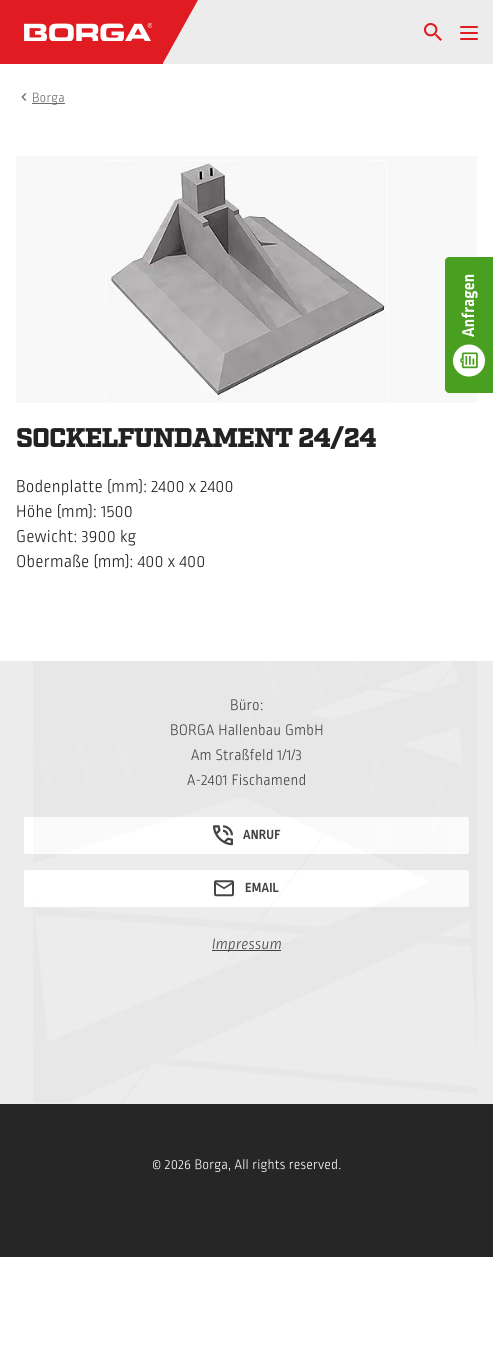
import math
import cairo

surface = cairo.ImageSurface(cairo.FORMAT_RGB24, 493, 1346)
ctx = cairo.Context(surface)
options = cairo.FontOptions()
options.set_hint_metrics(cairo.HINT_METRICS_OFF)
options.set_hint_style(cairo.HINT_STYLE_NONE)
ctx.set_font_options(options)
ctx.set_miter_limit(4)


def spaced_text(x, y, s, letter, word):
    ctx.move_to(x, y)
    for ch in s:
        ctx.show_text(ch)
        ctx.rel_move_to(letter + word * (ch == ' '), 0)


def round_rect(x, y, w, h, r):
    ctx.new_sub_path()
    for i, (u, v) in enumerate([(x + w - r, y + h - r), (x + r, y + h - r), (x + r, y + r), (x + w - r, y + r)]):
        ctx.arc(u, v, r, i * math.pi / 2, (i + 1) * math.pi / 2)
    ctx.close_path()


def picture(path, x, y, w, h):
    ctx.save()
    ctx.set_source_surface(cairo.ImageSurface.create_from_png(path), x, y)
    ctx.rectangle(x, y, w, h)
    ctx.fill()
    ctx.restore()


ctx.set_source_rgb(1, 1, 1)
ctx.paint()
ctx.set_source_rgb(0.925, 0.925, 0.929)
ctx.rectangle(163, 0, 330, 64)
ctx.fill()
ctx.set_source_rgb(0.878, 0.106, 0.129)
ctx.rectangle(0, 0, 163, 64)
ctx.fill()
ctx.new_path()
ctx.move_to(163, 0)
ctx.line_to(198, 0)
ctx.line_to(163, 63)
ctx.close_path()
ctx.fill()
picture("img1.png", 24, 23, 128, 18)
picture("img2.png", 424, 23, 18, 18)
round_rect(460, 26, 18, 2, 1)
ctx.fill()
round_rect(460, 32, 18, 2, 1)
ctx.fill()
round_rect(460, 38, 18, 2, 1)
ctx.fill()
picture("img3.png", 21, 93, 6, 8)
ctx.set_source_rgb(0.424, 0.424, 0.424)
ctx.rectangle(32, 103, 33, 1)
ctx.fill()
ctx.select_font_face("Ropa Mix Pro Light")
ctx.set_font_size(14)
spaced_text(32, 102, "Borga", 0.2, 0)
picture("img4.png", 16, 156, 461, 247)
ctx.select_font_face("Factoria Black")
ctx.set_font_size(27)
ctx.set_source_rgb(0.133, 0.133, 0.133)
spaced_text(16, 447, "SOCKELFUNDAMENT 24/24", -1, 0)
ctx.select_font_face("Ropa Mix Pro Light")
ctx.set_font_size(18)
spaced_text(16, 492, "Bodenplatte (mm): 2400 x 2400", 0.2, 0)
spaced_text(16, 517, "Höhe (mm): 1500", 0.2, 0)
spaced_text(16, 542, "Gewicht: 3900 kg", 0.2, 0)
spaced_text(16, 567, "Obermaße (mm): 400 x 400", 0.2, 0)
ctx.set_source_rgb(0.286, 0.627, 0.125)
ctx.new_path()
ctx.move_to(445, 389)
ctx.line_to(445, 261)
ctx.curve_to(445, 259, 447, 257, 449, 257)
ctx.line_to(493, 257)
ctx.line_to(493, 393)
ctx.line_to(449, 393)
ctx.curve_to(447, 393, 445, 391, 445, 389)
ctx.close_path()
ctx.fill()
ctx.select_font_face("Ropa Mix Pro", cairo.FONT_SLANT_NORMAL, cairo.FONT_WEIGHT_BOLD)
ctx.set_source_rgb(1, 1, 1)
ctx.save()
ctx.translate(474, 337)
ctx.rotate(-90 * math.pi / 180)
spaced_text(0, 0, "Anfragen", 0.2, 0)
ctx.restore()
ctx.new_path()
ctx.move_to(453, 360.5)
ctx.curve_to(453, 352, 460, 344.5, 469, 344.5)
ctx.curve_to(478, 344.5, 485, 352, 485, 360.5)
ctx.curve_to(485, 369.5, 478, 376.5, 469, 376.5)
ctx.curve_to(460, 376.5, 453, 369.5, 453, 360.5)
ctx.close_path()
ctx.fill()
picture("img5.png", 460, 352, 18, 17)
ctx.set_source_rgb(0.925, 0.925, 0.929)
ctx.rectangle(0, 661, 493, 443)
ctx.fill()
ctx.select_font_face("Ropa Mix Pro Light")
ctx.set_font_size(16)
ctx.set_source_rgb(0.267, 0.263, 0.271)
spaced_text(230, 710, "Büro:", 0.2, 0)
spaced_text(170, 735, "BORGA Hallenbau GmbH", 0.2, 0)
spaced_text(191, 760, "Am Straßfeld 1/1/3", 0.2, 0)
spaced_text(187, 785, "A-2401 Fischamend", 0.2, 0)
ctx.set_source_rgb(1, 1, 1)
round_rect(24, 817, 445, 37, 2)
ctx.fill()
picture("img7.png", 213, 825, 20, 21)
ctx.select_font_face("Ropa Mix Pro", cairo.FONT_SLANT_NORMAL, cairo.FONT_WEIGHT_BOLD)
ctx.set_font_size(14)
ctx.set_source_rgb(0.267, 0.263, 0.271)
spaced_text(243, 839, "ANRUF", 0.2, 0)
ctx.set_source_rgb(1, 1, 1)
round_rect(24, 870, 445, 37, 2)
ctx.fill()
picture("img8.png", 214, 880, 20, 17)
ctx.set_source_rgb(0.267, 0.263, 0.271)
spaced_text(245, 892, "EMAIL", 0.2, 0)
ctx.rectangle(212, 950, 69, 1)
ctx.fill()
ctx.select_font_face("Ropa Mix Pro Light", cairo.FONT_SLANT_ITALIC)
ctx.set_font_size(16)
spaced_text(212, 949, "Impressum", 0.2, 0)
picture("img6.png", 33, 661, 444, 442)
ctx.set_source_rgb(0.149, 0.149, 0.149)
ctx.rectangle(0, 1104, 493, 153)
ctx.fill()
ctx.select_font_face("Ropa Mix Pro Light")
ctx.set_font_size(14.4)
ctx.set_source_rgb(1, 1, 1)
spaced_text(152, 1169, "© 2026 Borga, All rights reserved.", 0.2, 0)
surface.write_to_png("page.png")
